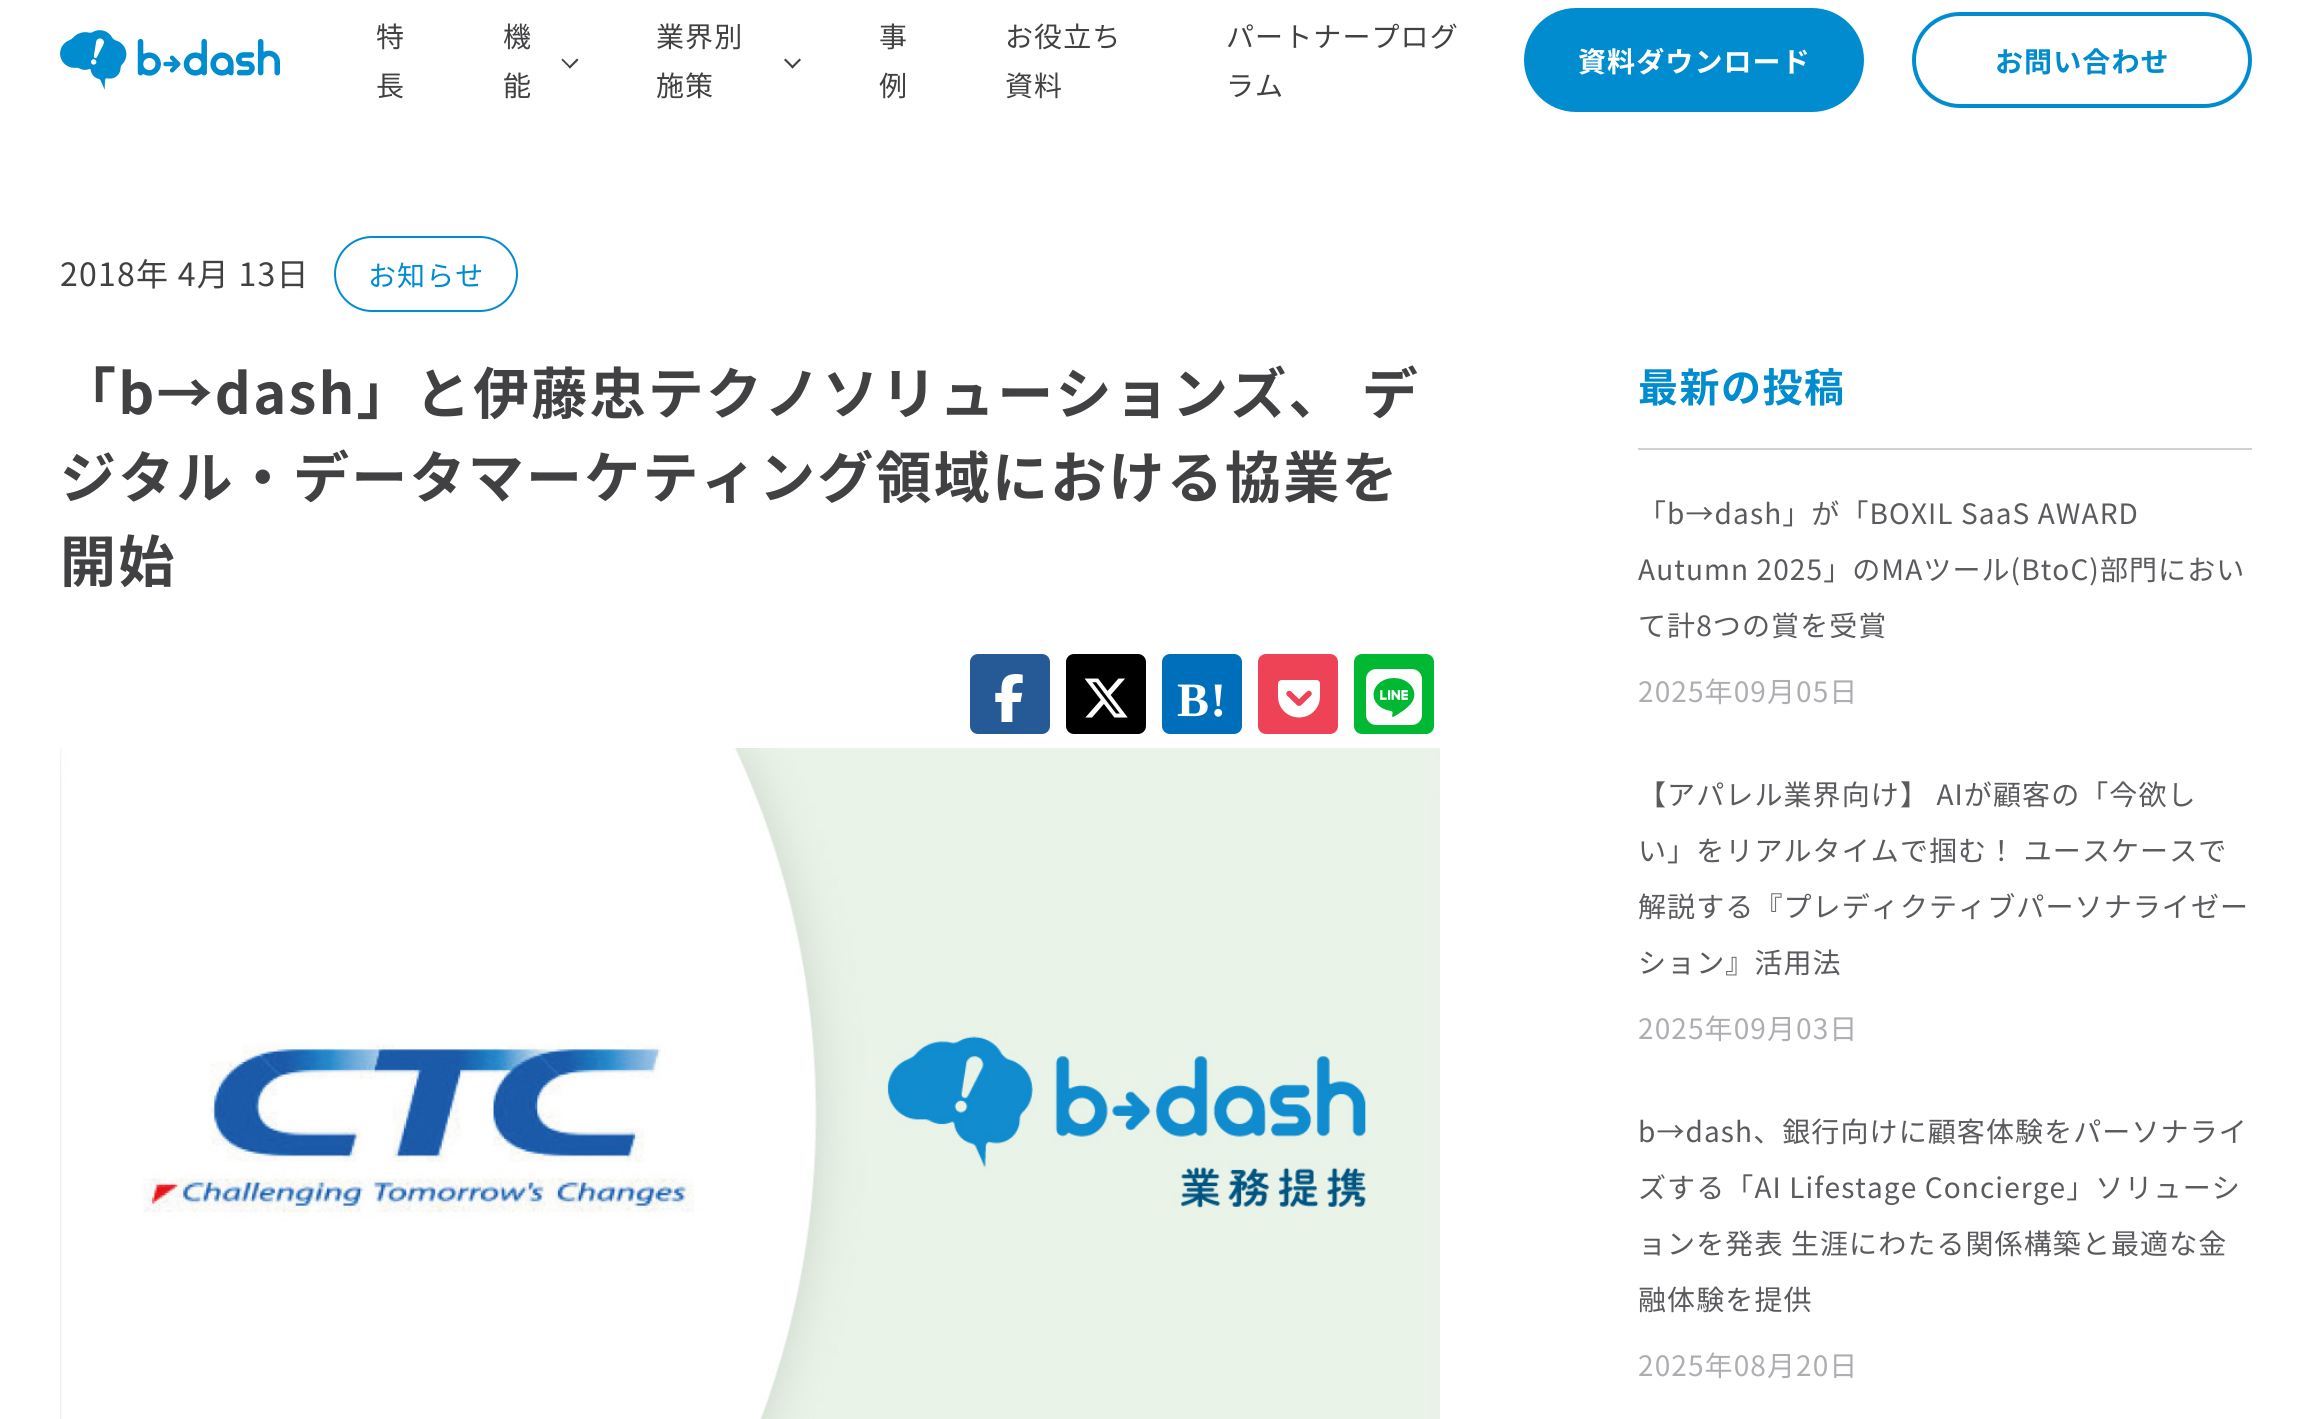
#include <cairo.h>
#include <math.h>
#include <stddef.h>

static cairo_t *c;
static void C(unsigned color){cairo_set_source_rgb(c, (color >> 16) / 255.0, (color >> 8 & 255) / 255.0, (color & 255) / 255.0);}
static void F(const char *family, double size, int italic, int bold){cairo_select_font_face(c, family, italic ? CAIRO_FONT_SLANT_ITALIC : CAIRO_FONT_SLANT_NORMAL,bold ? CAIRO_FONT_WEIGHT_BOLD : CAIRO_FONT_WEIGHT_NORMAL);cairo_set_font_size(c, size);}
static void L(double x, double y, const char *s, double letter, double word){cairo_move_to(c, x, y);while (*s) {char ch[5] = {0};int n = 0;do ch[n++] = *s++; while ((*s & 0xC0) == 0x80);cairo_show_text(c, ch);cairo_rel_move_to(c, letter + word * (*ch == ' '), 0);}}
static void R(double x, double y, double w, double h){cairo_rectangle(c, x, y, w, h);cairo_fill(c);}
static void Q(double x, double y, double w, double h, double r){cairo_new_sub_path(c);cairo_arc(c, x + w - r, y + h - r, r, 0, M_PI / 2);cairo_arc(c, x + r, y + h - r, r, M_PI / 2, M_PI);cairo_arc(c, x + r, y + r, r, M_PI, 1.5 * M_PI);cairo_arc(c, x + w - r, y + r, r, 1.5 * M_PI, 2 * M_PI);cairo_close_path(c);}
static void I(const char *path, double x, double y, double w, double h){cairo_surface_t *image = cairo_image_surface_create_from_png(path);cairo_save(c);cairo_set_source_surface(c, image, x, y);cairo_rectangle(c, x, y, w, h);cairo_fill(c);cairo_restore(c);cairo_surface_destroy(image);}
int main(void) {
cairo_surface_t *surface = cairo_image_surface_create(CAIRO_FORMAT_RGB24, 2312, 1419);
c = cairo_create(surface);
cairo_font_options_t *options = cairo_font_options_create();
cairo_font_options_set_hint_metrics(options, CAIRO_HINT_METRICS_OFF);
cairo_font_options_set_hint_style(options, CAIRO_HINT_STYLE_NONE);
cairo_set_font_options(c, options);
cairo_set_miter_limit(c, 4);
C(0xffffff);
cairo_paint(c);
I("1.png",60,30,220,60);
F("Noto Sans JP",28,0,0);
C(0x414143);
L(376,47,"特",1.1,0);
L(376,96,"長",1.1,0);
L(503,47,"機",1.1,0);
L(503,96,"能",1.1,0);
cairo_new_path(c);
cairo_move_to(c,578.5,60);
cairo_line_to(c,570,68.5);
cairo_line_to(c,568.5,67);
cairo_line_to(c,577,58.5);
cairo_close_path(c);
cairo_fill(c);
cairo_new_path(c);
cairo_move_to(c,571,67);
cairo_line_to(c,570,68.5);
cairo_line_to(c,561.5,60);
cairo_line_to(c,562.5,58.5);
cairo_close_path(c);
cairo_fill(c);
L(656,47,"業界別",1.1,0);
L(656,96,"施策",1.1,0);
cairo_new_path(c);
cairo_move_to(c,801,60);
cairo_line_to(c,792.5,68.5);
cairo_line_to(c,791,67);
cairo_line_to(c,799.5,58.5);
cairo_close_path(c);
cairo_fill(c);
cairo_new_path(c);
cairo_move_to(c,794,67);
cairo_line_to(c,792.5,68.5);
cairo_line_to(c,784,60);
cairo_line_to(c,785.5,58.5);
cairo_close_path(c);
cairo_fill(c);
L(879,47,"事",1.1,0);
L(879,96,"例",1.1,0);
L(1005,47,"お役立ち",1.1,0);
L(1005,96,"資料",1.1,0);
L(1226,47,"パートナープログ",1.1,0);
L(1226,96,"ラム",1.1,0);
C(0x008ccf);
Q(1524,8,340,104,52);
cairo_fill(c);
F("Noto Sans JP",28,0,1);
C(0xffffff);
L(1578,72,"資料ダウンロード",1.1,0);
Q(1914,14,336,92,46);
C(0x008ccf);
cairo_set_line_width(c,4);
cairo_stroke(c);
L(1995,72,"お問い合わせ",1.1,0);
F("Noto Sans JP",32,0,0);
C(0x414143);
L(60,286,"2018年 4月 13日",1.25,0);
Q(335,237,182,74,37);
C(0x008ccf);
cairo_set_line_width(c,2);
cairo_stroke(c);
F("Noto Sans JP",28,0,0);
L(368,286,"お知らせ",1.1,0);
F("Noto Sans JP",56,0,1);
C(0x414143);
L(60,414,"「b→dash」と伊藤忠テクノソリューションズ、 デ",2.25,0);
L(60,498,"ジタル・データマーケティング領域における協業を",2.25,0);
L(60,582,"開始",2.25,0);
C(0x265a96);
Q(970,654,80,80,8);
cairo_fill(c);
I("2.png",995,674,28,48);
C(0x000000);
Q(1066,654,80,80,8);
cairo_fill(c);
I("3.png",1084,678,44,40);
C(0x006fbb);
Q(1162,654,80,80,8);
cairo_fill(c);
F("Liberation Serif",48,0,1);
C(0xffffff);
L(1177,716,"B!",1.25,0);
C(0xee4256);
Q(1258,654,80,80,8);
cairo_fill(c);
I("4.png",1278,680,42,38);
C(0x01b833);
Q(1354,654,80,80,8);
cairo_fill(c);
I("5.png",1366,669,56,56);
I("6.png",60,748,1380,671);
C(0xd0d0d1);
R(1638,448,614,2);
F("Noto Sans JP",40,0,1);
C(0x008ccf);
L(1638,402,"最新の投稿",1.5,0);
F("Noto Sans JP",28,0,0);
C(0x5b5b5f);
L(1638,524,"「b→dash」が「BOXIL SaaS AWARD",1.1,0);
L(1638,580,"Autumn 2025」のMAツール(BtoC)部門におい",1.1,0);
L(1638,636,"て計8つの賞を受賞",1.1,0);
C(0xaeaeb2);
L(1638,702,"2025年09月05日",1.1,0);
C(0x5b5b5f);
L(1638,805,"【アパレル業界向け】 AIが顧客の「今欲し",1.1,0);
L(1638,861,"い」をリアルタイムで掴む！ ユースケースで",1.1,0);
L(1638,917,"解説する『プレディクティブパーソナライゼー",1.1,0);
L(1638,973,"ション』活用法",1.1,0);
C(0xaeaeb2);
L(1638,1039,"2025年09月03日",1.1,0);
C(0x5b5b5f);
L(1638,1142,"b→dash、銀行向けに顧客体験をパーソナライ",1.1,0);
L(1638,1198,"ズする「AI Lifestage Concierge」ソリューシ",1.1,0);
L(1638,1254,"ョンを発表 生涯にわたる関係構築と最適な金",1.1,0);
L(1638,1310,"融体験を提供",1.1,0);
C(0xaeaeb2);
L(1638,1376,"2025年08月20日",1.1,0);
cairo_surface_write_to_png(surface, "o.png");
cairo_font_options_destroy(options);
cairo_destroy(c);
cairo_surface_destroy(surface);
return 0;
}
